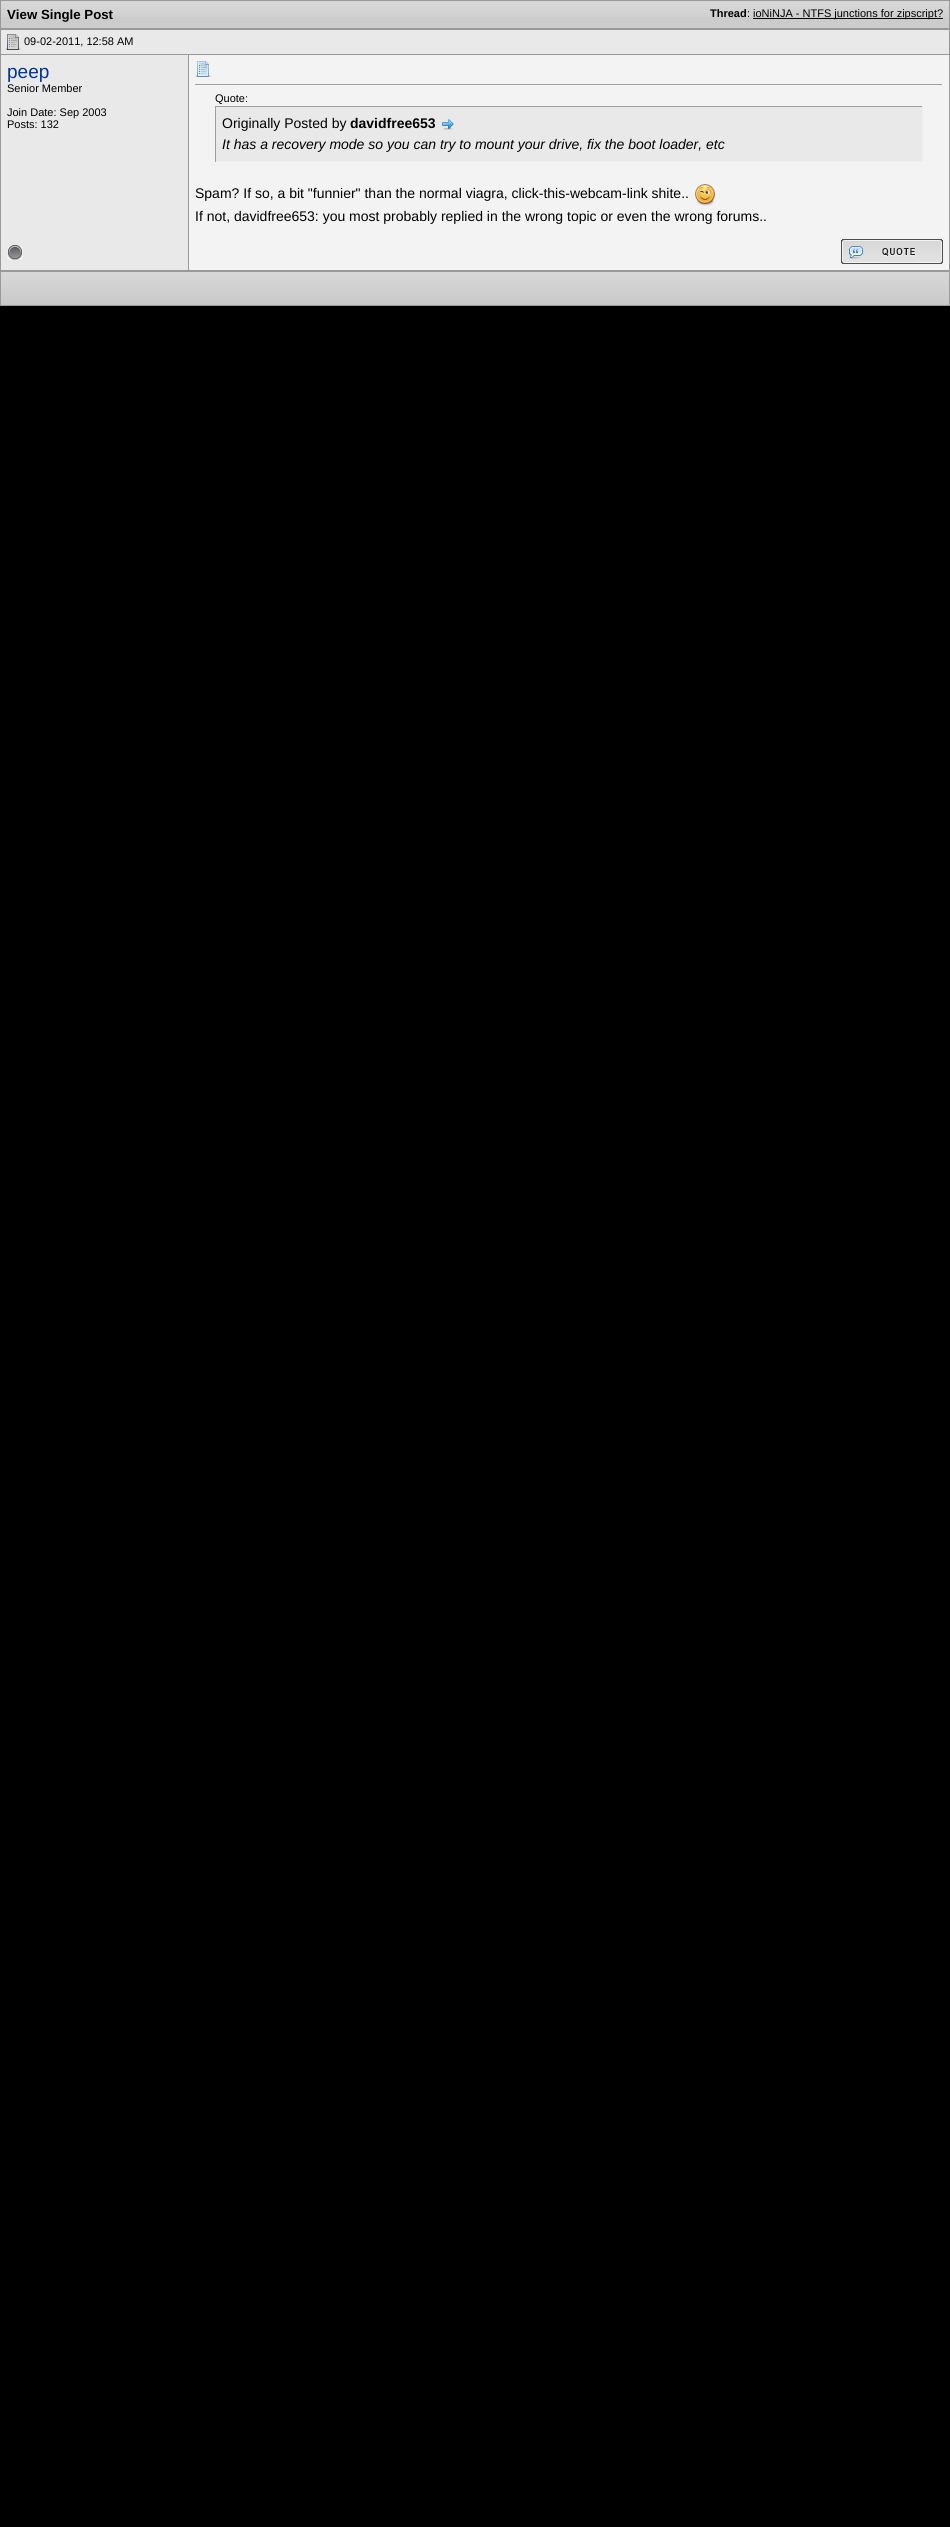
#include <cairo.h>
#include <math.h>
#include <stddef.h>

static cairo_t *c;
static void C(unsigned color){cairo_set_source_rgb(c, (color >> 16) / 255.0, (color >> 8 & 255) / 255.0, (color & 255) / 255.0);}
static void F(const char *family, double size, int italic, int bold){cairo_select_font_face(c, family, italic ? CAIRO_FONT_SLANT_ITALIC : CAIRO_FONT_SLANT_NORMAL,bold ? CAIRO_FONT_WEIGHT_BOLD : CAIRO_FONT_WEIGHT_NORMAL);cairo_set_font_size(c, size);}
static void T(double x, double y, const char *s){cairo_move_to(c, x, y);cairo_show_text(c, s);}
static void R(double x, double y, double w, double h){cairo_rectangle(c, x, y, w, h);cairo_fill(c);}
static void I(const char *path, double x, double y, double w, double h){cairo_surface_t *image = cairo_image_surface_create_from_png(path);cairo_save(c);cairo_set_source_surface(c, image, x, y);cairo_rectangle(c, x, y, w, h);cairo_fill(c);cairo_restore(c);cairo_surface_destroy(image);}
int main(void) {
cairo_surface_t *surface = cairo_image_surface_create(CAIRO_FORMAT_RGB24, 950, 2527);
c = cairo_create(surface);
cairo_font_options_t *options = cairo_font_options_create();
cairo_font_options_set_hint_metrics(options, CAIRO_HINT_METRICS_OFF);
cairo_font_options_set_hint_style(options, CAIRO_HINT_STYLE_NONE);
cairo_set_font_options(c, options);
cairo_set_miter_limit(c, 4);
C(0x000000);
cairo_paint(c);
C(0x999999);
R(0,0,950,29);
C(0xcccccc);
R(1,17,948,11);
I("1.png",1,1,948,16);
F("Liberation Sans",13.25,0,1);
C(0x000000);
T(7,19,"View Single Post");
F("Liberation Sans",11,0,1);
T(710,17,"Thread");
F("Liberation Sans",11,0,0);
T(747,17,":");
R(753,18,190,1);
T(753,17,"ioNiNJA - NTFS junctions for zipscript?");
C(0xe9e9e9);
R(1,30,948,24);
C(0x999999);
R(0,29,950,1);
R(0,54,189,1);
R(0,29,1,204);
I("2.png",5,34,16,16);
C(0x000000);
T(24,45,"09-02-2011, 12:58 AM");
C(0x999999);
R(949,29,1,242);
R(189,54,761,1);
C(0xe9e9e9);
R(1,55,187,215);
C(0x999999);
R(188,55,1,216);
F("Liberation Sans",19,0,0);
C(0x003399);
T(7,78,"peep");
F("Liberation Sans",11,0,0);
C(0x000000);
T(7,92,"Senior Member");
T(7,116,"Join Date: Sep 2003");
T(7,128,"Posts: 132");
C(0xf3f3f3);
R(189,55,760,215);
I("3.png",195,61,16,16);
C(0x9f9f9f);
R(195,84,748,1);
C(0xeeeeee);
R(942,84,1,1);
C(0x000000);
T(215,102,"Quote:");
C(0xe9e9e9);
R(216,107,706,54);
C(0x9f9f9f);
R(215,106,708,1);
C(0xeeeeee);
R(922,106,1,56);
R(215,161,708,1);
C(0x9f9f9f);
R(215,106,1,56);
F("Liberation Sans",14,0,0);
C(0x000000);
T(222,128,"Originally Posted by");
F("Liberation Sans",14,0,1);
T(350,128,"davidfree653");
I("4.png",442,119,12,11);
F("Liberation Sans",14,1,0);
T(222,149,"It has a recovery mode so you can try to mount your drive, fix the boot loader, etc");
F("Liberation Sans",14,0,0);
T(195,198,"Spam? If so, a bit \"funnier\" than the normal viagra, click-this-webcam-link shite..");
I("5.png",695,184,20,22);
T(195,221,"If not, davidfree653: you most probably replied in the wrong topic or even the wrong forums..");
C(0x999999);
R(0,270,950,36);
R(0,233,1,38);
I("6.png",7,245,16,15);
I("7.png",841,239,102,25);
I("8.png",1,272,948,33);
cairo_surface_write_to_png(surface, "o.png");
cairo_font_options_destroy(options);
cairo_destroy(c);
cairo_surface_destroy(surface);
return 0;
}
